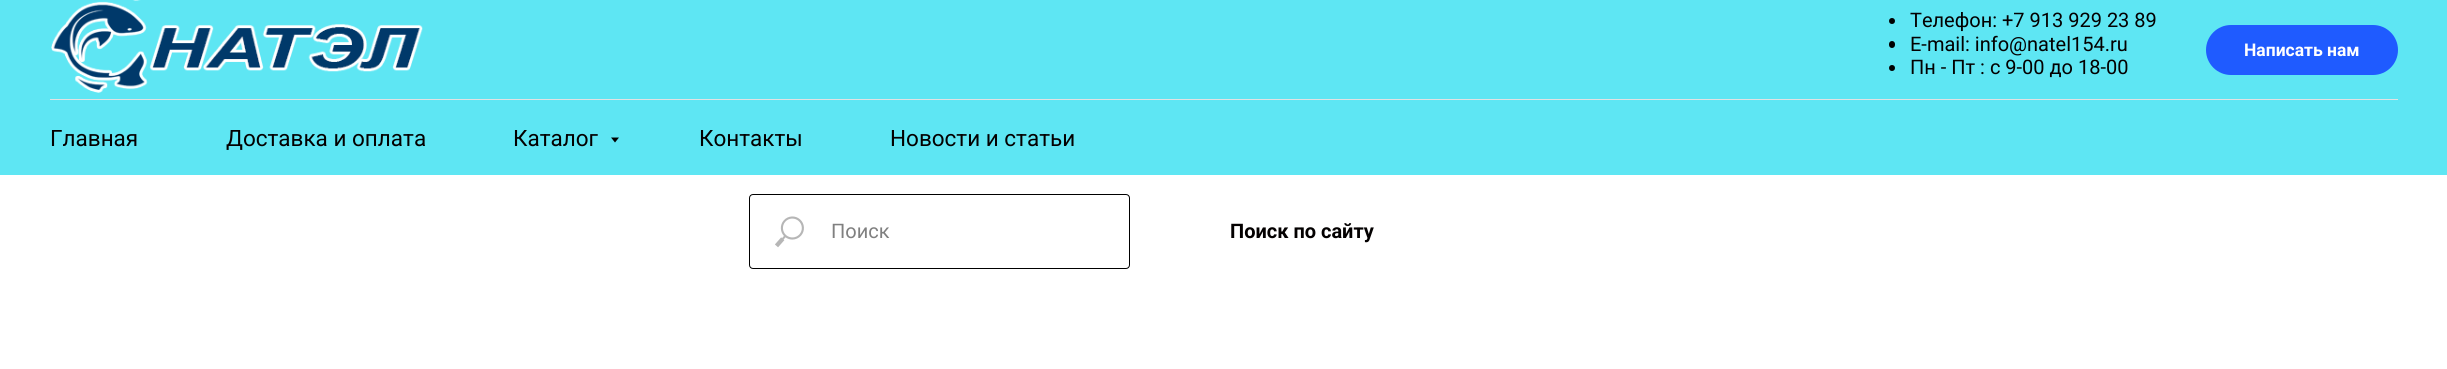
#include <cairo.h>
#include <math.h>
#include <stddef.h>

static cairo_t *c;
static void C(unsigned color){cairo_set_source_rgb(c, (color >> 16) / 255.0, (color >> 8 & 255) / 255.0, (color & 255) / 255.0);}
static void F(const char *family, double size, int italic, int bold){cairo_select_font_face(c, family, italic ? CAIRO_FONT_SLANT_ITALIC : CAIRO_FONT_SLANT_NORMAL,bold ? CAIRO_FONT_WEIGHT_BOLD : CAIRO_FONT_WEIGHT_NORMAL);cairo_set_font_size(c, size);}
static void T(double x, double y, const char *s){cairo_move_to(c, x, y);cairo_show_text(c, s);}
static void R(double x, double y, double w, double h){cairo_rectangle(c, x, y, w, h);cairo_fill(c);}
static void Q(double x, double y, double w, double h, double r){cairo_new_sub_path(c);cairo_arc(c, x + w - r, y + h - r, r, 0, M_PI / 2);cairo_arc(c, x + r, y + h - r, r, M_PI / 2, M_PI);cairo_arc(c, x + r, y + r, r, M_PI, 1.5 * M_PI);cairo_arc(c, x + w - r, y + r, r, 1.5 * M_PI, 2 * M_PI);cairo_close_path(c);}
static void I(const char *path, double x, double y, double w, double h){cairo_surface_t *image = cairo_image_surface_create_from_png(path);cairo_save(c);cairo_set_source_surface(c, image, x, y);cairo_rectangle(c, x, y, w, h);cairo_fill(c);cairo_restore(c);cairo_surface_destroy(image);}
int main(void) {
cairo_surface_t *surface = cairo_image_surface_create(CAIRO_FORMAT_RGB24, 2447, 369);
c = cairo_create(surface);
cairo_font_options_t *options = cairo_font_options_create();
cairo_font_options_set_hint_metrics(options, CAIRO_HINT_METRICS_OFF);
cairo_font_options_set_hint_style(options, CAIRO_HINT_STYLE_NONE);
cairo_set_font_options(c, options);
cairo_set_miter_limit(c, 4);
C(0xffffff);
cairo_paint(c);
C(0x5ee6f3);
R(0,0,2447,175);
I("1.png",51,0,372,93);
C(0x000000);
cairo_arc(c,1892,21,3,0,2 * M_PI);
cairo_fill(c);
F("Roboto",20,0,0);
C(0x030000);
T(1910,27,"Телефон: +7 913 929 23 89");
C(0x000000);
Q(1889,41,6,7,3);
cairo_fill(c);
C(0x030000);
T(1910,51,"E-mail: info@natel154.ru");
C(0x000000);
cairo_new_path(c);
cairo_arc(c,1892,68,3,0,2 * M_PI);
cairo_fill(c);
C(0x030000);
T(1910,74,"Пн - Пт : с 9-00 до 18-00");
C(0x1f5bff);
Q(2206,25,192,50,25);
cairo_fill(c);
F("Roboto",17.5,0,1);
C(0xffffff);
T(2244,56,"Написать нам");
C(0xe2e2e2);
R(50,99,2348,1);
F("Roboto",22.5,0,0);
C(0x030000);
T(50,146,"Главная");
T(226,146,"Доставка и оплата");
T(513,146,"Каталог");
C(0x000000);
cairo_new_path(c);
cairo_move_to(c,611,137.5);
cairo_line_to(c,619,137.5);
cairo_line_to(c,615,142.5);
cairo_close_path(c);
cairo_fill(c);
C(0x030000);
T(699,146,"Контакты");
T(890,146,"Новости и статьи");
Q(749.5,194.5,380,74,3.5);
C(0x000000);
cairo_set_line_width(c,1);
cairo_stroke(c);
I("2.png",775,216,29,32);
F("Roboto",20,0,0);
C(0x808080);
T(831,238,"Поиск");
F("Roboto",20,0,1);
C(0x030000);
T(1230,238,"Поиск по сайту");
cairo_surface_write_to_png(surface, "o.png");
cairo_font_options_destroy(options);
cairo_destroy(c);
cairo_surface_destroy(surface);
return 0;
}
